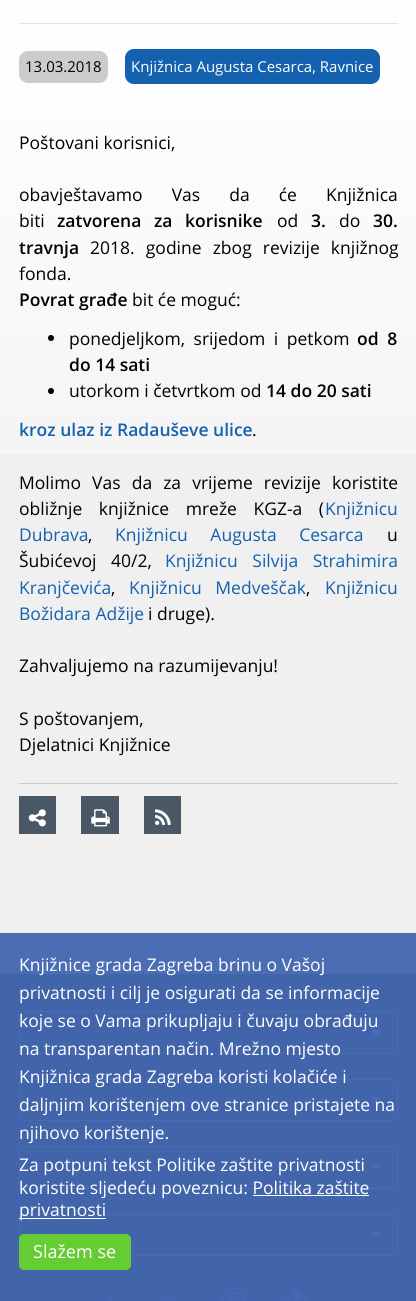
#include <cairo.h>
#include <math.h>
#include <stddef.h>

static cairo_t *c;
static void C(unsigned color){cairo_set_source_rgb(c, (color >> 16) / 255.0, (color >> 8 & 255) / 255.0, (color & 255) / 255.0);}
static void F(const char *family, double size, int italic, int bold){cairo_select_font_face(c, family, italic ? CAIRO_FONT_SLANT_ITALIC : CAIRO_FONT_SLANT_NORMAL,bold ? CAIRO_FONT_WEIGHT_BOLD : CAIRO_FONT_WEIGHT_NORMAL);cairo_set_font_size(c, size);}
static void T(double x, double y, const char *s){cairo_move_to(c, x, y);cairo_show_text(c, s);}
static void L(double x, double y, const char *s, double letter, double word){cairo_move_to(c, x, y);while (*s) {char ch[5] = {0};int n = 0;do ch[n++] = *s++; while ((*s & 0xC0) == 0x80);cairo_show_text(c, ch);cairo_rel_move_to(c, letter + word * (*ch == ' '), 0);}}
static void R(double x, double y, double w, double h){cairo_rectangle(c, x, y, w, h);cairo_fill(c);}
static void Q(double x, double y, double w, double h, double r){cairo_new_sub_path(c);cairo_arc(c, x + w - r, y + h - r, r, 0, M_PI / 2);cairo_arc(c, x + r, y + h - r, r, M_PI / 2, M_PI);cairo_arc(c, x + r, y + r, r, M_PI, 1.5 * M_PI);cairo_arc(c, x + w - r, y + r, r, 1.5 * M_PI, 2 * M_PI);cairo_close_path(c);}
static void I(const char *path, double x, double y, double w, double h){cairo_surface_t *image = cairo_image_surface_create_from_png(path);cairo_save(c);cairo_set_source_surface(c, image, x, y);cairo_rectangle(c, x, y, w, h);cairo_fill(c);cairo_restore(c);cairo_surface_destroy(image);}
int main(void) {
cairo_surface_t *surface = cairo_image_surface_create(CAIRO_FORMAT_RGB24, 416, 1301);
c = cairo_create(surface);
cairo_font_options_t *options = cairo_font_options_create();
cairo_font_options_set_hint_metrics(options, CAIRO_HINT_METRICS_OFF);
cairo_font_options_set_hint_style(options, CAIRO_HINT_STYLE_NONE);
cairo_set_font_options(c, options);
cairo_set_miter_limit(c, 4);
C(0xf0f0f0);
cairo_paint(c);
C(0x4b6db3);
R(0,933,416,41);
I("1.png",0,0,416,454);
C(0xe4e4e4);
R(19,23,379,1);
C(0xcccccc);
Q(19,51,89,32,9);
cairo_fill(c);
F("Open Sans",15,0,0);
C(0x000000);
T(25,72,"13.03.2018");
C(0x1361af);
Q(125,49,255,35,9);
cairo_fill(c);
C(0xffffff);
T(131,72,"Knjižnica Augusta Cesarca, Ravnice");
F("Open Sans",17.5,0,0);
C(0x000000);
T(19,149,"Poštovani korisnici,");
L(19,201,"obavještavamo Vas da će Knjižnica",0,24.5);
T(19,227,"biti");
F("Open Sans SemiBold",17.5,0,0);
L(57,227,"zatvorena za korisnike",0,8);
F("Open Sans",17.5,0,0);
T(277,227,"od");
F("Open Sans SemiBold",17.5,0,0);
T(311,227,"3.");
F("Open Sans",17.5,0,0);
T(339,227,"do");
F("Open Sans SemiBold",17.5,0,0);
T(373,227,"30.");
T(19,254,"travnja");
F("Open Sans",17.5,0,0);
L(90,254,"2018. godine zbog revizije knjižnog",0,6.5);
T(19,280,"fonda.");
F("Open Sans SemiBold",17.5,0,0);
T(19,306,"Povrat građe");
F("Open Sans",17.5,0,0);
T(132,306,"bit će moguć:");
cairo_new_path(c);
cairo_arc(c,51,338,3,0,2 * M_PI);
cairo_fill(c);
L(69,345,"ponedjeljkom, srijedom i petkom",0,4);
F("Open Sans SemiBold",17.5,0,0);
L(357,345,"od 8",0,4);
T(69,371,"do 14 sati");
cairo_new_path(c);
cairo_arc(c,51,391,3,0,2 * M_PI);
cairo_fill(c);
F("Open Sans",17.5,0,0);
T(69,397,"utorkom i četvrtkom od");
F("Open Sans SemiBold",17.5,0,0);
T(266,397,"14 do 20 sati");
C(0x1361af);
T(19,436,"kroz ulaz iz Radauševe ulice");
F("Open Sans",17.5,0,0);
C(0x000000);
T(252,436,".");
L(19,489,"Molimo Vas da za vrijeme revizije koristite",0,6.5);
L(19,515,"obližnje knjižnice mreže KGZ-a (",0,12);
C(0x1361af);
T(325,515,"Knjižnicu");
T(19,541,"Dubrava");
C(0x000000);
T(88,541,",");
C(0x1361af);
L(115,541,"Knjižnicu Augusta Cesarca",0,18);
C(0x000000);
T(387,541,"u");
L(19,567,"Šubićevoj 40/2,",0,10);
C(0x1361af);
L(165,567,"Knjižnicu Silvija Strahimira",0,10);
T(19,594,"Kranjčevića");
C(0x000000);
T(111,594,",");
C(0x1361af);
L(129,594,"Knjižnicu Medveščak",0,9);
C(0x000000);
T(306,594,",");
C(0x1361af);
T(325,594,"Knjižnicu");
T(19,620,"Božidara Adžije");
C(0x000000);
T(148,620,"i druge).");
T(19,672,"Zahvaljujemo na razumijevanju!");
T(19,725,"S poštovanjem,");
T(19,751,"Djelatnici Knjižnice");
C(0xcccccc);
R(19,783,379,1);
C(0x4a5865);
R(19,796,37,38);
I("2.png",28,809,18,18);
R(81,796,38,38);
I("3.png",91,809,19,18);
R(144,796,37,38);
I("4.png",155,809,16,16);
C(0x4164ab);
R(0,974,416,327);
C(0xffffff);
T(19,971,"Knjižnice grada Zagreba brinu o Vašoj");
T(19,999,"privatnosti i cilj je osigurati da se informacije");
Q(19.5,1011.5,378,42,4.5);
C(0x496bb1);
cairo_set_line_width(c,1);
cairo_stroke(c);
C(0x4b6eb4);
cairo_new_path(c);
cairo_move_to(c,371,1030);
cairo_line_to(c,381,1030);
cairo_line_to(c,376,1035);
cairo_close_path(c);
cairo_fill(c);
C(0xffffff);
T(19,1027,"koje se o Vama prikupljaju i čuvaju obrađuju");
T(19,1055,"na transparentan način. Mrežno mjesto");
Q(19.5,1079.5,378,41,4.5);
C(0x496bb1);
cairo_stroke(c);
C(0xffffff);
T(19,1083,"Knjižnica grada Zagreba koristi kolačiće i");
C(0x4b6eb4);
cairo_new_path(c);
cairo_move_to(c,371,1097.5);
cairo_line_to(c,381,1097.5);
cairo_line_to(c,376,1102.5);
cairo_close_path(c);
cairo_fill(c);
C(0xffffff);
T(19,1111,"daljnjim korištenjem ove stranice pristajete na");
T(19,1139,"njihovo korištenje.");
Q(19.5,1146.5,378,42,4.5);
C(0x496bb1);
cairo_stroke(c);
C(0xffffff);
T(19,1171,"Za potpuni tekst Politike zaštite privatnosti");
T(19,1194,"koristite sljedeću poveznicu: Politika zaštite");
Q(19.5,1214.5,378,41,4.5);
C(0x496bb1);
cairo_stroke(c);
C(0xffffff);
R(19,1218,87,1);
T(19,1216,"privatnosti");
R(253,1195,116,1);
C(0x66cc33);
Q(19,1234,112,36,5);
cairo_fill(c);
F("Open Sans",18,0,0);
C(0xffffff);
T(33,1258,"Slažem se");
C(0x4b6eb4);
cairo_new_path(c);
cairo_move_to(c,371,1165);
cairo_line_to(c,381,1165);
cairo_line_to(c,376,1170);
cairo_close_path(c);
cairo_fill(c);
cairo_new_path(c);
cairo_move_to(c,371,1232.5);
cairo_line_to(c,381,1232.5);
cairo_line_to(c,376,1237.5);
cairo_close_path(c);
cairo_fill(c);
I("5.png",105,1294,10,7);
I("6.png",165,1294,12,7);
I("7.png",221,1292,23,9);
I("8.png",285,1289,21,12);
cairo_surface_write_to_png(surface, "o.png");
cairo_font_options_destroy(options);
cairo_destroy(c);
cairo_surface_destroy(surface);
return 0;
}
